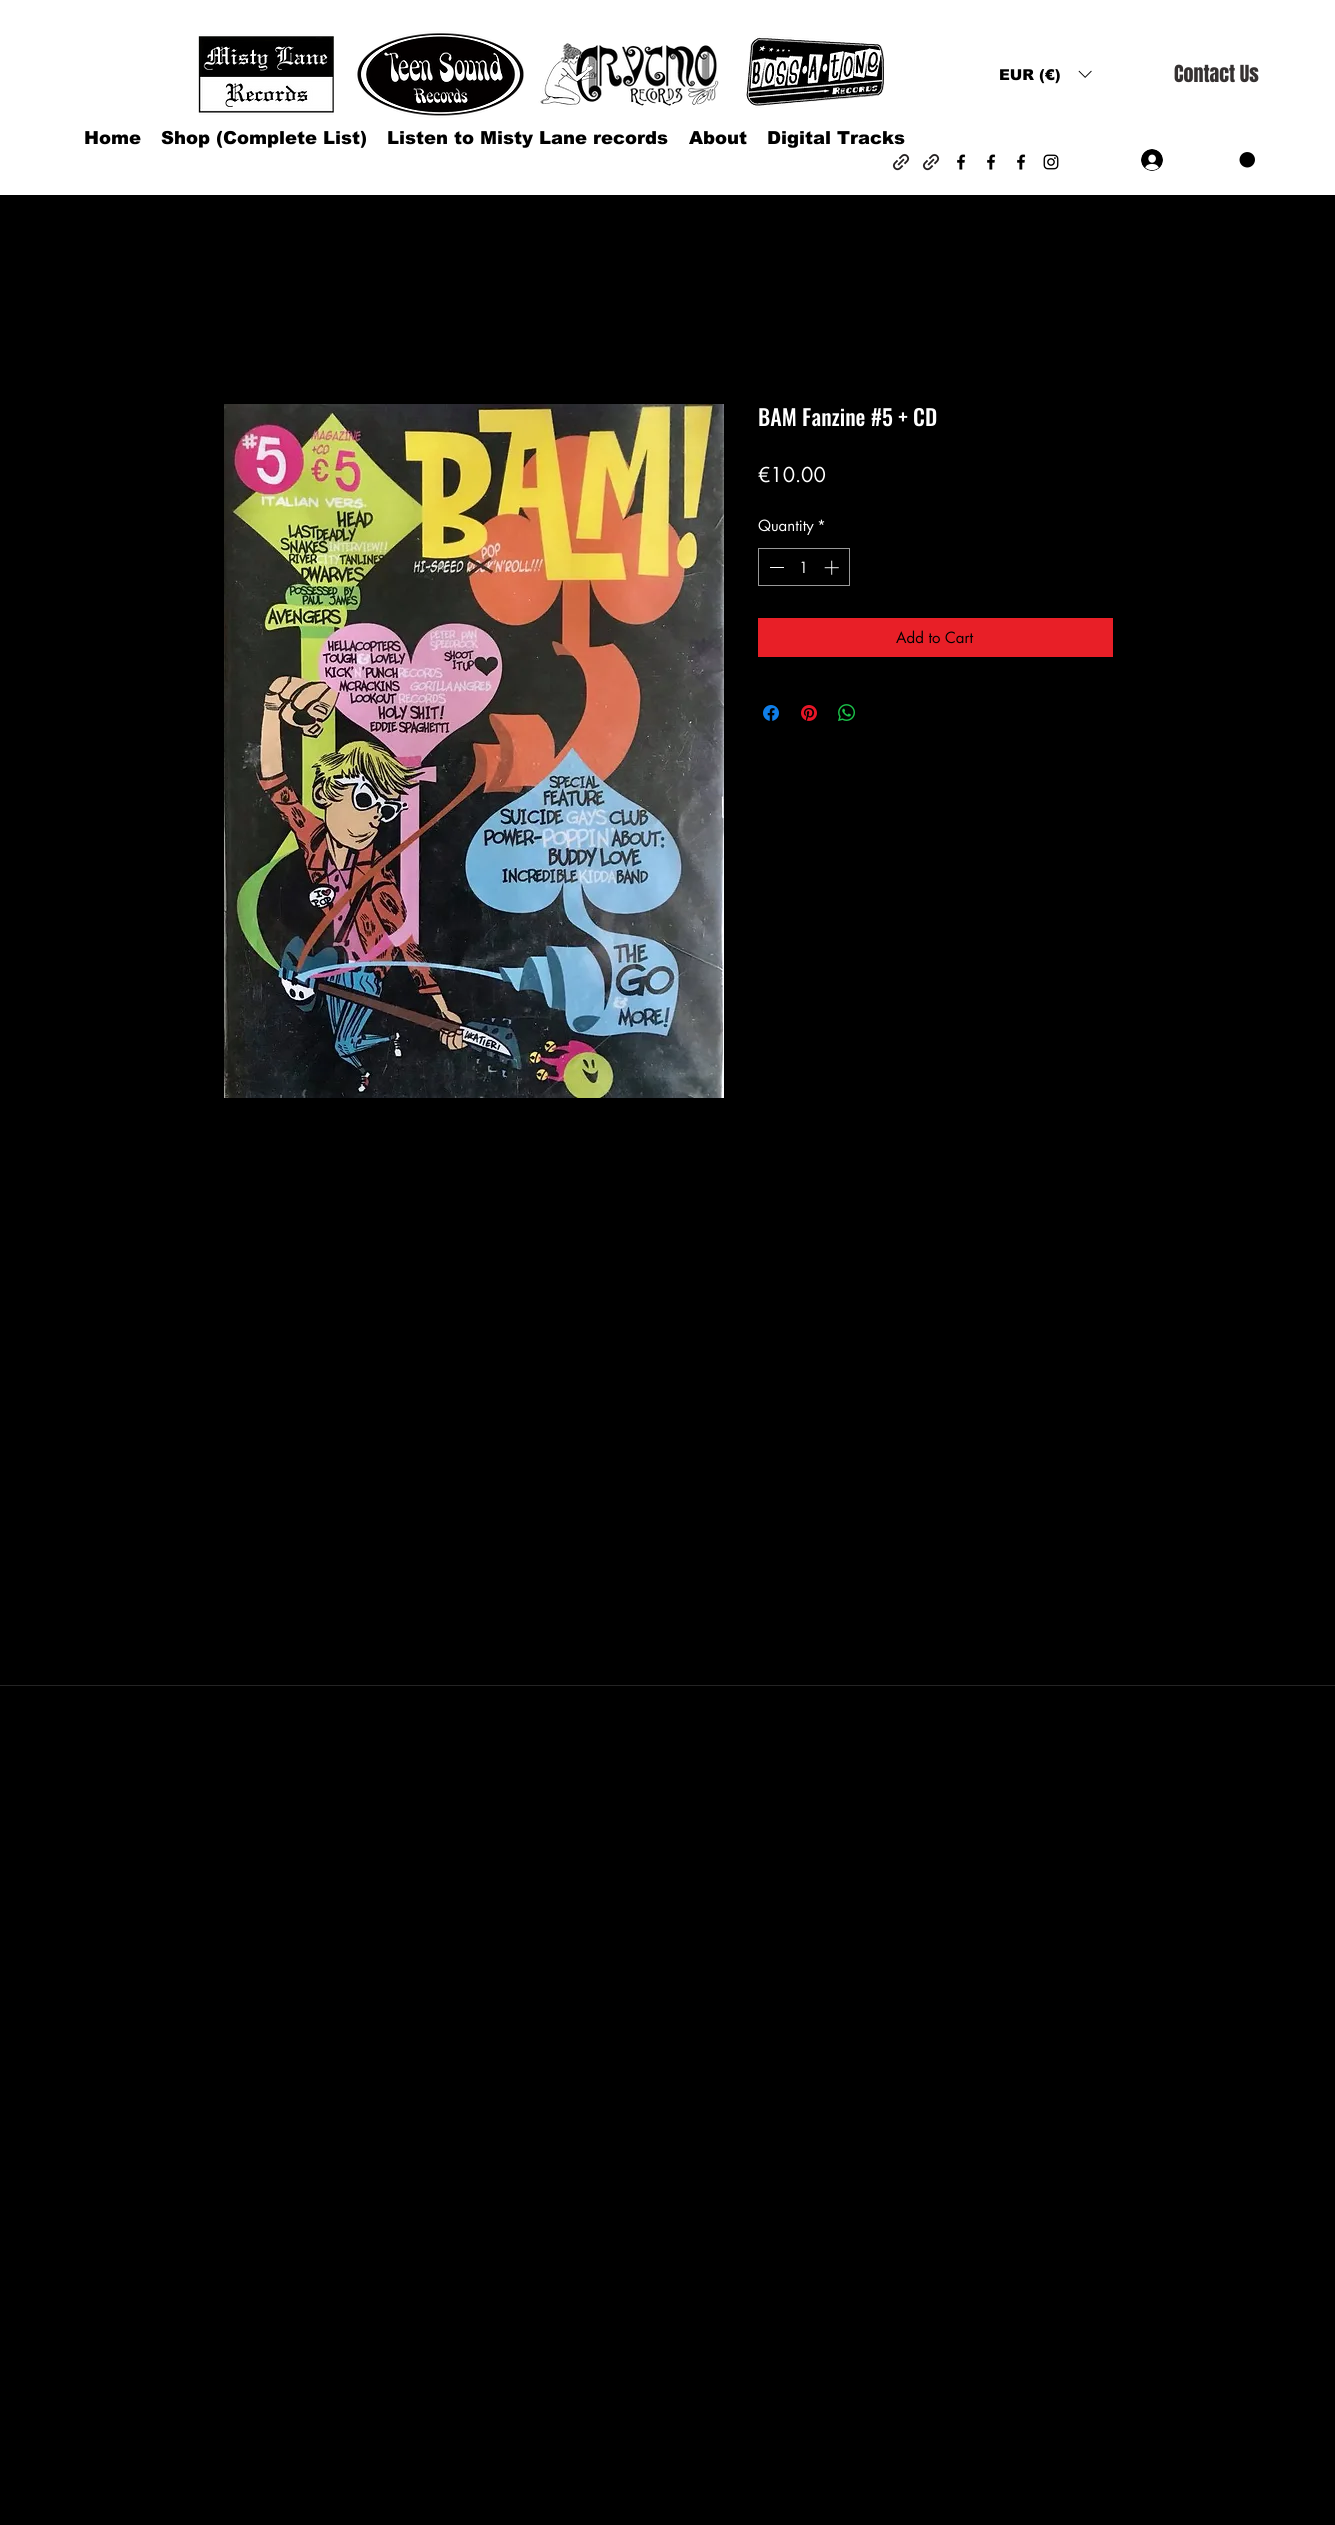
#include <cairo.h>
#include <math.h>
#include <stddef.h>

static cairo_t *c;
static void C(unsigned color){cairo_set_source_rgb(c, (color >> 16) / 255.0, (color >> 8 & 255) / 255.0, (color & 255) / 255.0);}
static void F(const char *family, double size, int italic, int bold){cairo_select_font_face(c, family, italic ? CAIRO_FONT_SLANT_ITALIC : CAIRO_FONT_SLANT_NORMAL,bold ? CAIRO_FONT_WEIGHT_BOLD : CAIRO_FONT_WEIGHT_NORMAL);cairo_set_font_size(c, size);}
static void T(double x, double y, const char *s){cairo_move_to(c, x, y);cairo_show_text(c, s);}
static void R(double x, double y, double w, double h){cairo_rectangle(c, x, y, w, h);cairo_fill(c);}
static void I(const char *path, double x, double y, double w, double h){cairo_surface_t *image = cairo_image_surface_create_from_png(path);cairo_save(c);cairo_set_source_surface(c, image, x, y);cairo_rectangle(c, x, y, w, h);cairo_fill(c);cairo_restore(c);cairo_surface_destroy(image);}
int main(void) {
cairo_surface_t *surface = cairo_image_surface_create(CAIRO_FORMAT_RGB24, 1335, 2525);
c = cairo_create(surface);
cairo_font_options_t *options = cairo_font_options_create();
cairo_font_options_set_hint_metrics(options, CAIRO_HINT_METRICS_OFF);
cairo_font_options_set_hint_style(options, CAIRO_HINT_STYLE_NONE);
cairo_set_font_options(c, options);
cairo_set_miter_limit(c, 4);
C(0x000000);
cairo_paint(c);
C(0xffffff);
R(0,0,1335,195);
I("1.png",198,31,686,87);
F("arial Black",15,0,0);
C(0x000000);
T(999,80,"EUR (€)");
I("2.png",1078,70,14,8);
F("Anton",20,0,0);
C(0x353131);
T(1174,82,"Contact Us");
F("arial Black",18,0,0);
C(0x000000);
T(84,144,"Home");
T(161,144,"Shop (Complete List)");
T(387,144,"Listen to Misty Lane records");
T(689,144,"About");
T(767,144,"Digital Tracks");
I("3.png",892,153,18,18);
I("3.png",922,153,18,18);
I("4.png",957,154,9,16);
I("4.png",987,154,9,16);
I("4.png",1017,154,9,16);
I("5.png",1043,154,16,16);
I("6.png",1141,149,22,22);
I("7.png",1239,152,16,16);
I("8.png",224,404,500,694);
F("Oswald Medium",22,0,0);
C(0xffffff);
T(758,426,"BAM Fanzine #5 + CD");
F("futura",20,0,0);
T(758,482,"€10.00");
F("futura",15,0,0);
T(758,531,"Quantity");
T(817,531,"*");
cairo_rectangle(c,758.5,548.5,91,37);
C(0x999999);
cairo_set_line_width(c,1);
cairo_stroke(c);
C(0xffffff);
R(770,567,14,1);
T(799,573,"1");
I("9.png",824,560,15,15);
C(0xe81f27);
R(758,618,355,39);
C(0x000000);
T(896,643,"Add to Cart");
I("10.png",763,705,16,16);
I("11.png",801,705,16,16);
I("12.png",838,704,17,17);
C(0x242424);
R(0,1685,1335,1);
cairo_surface_write_to_png(surface, "o.png");
cairo_font_options_destroy(options);
cairo_destroy(c);
cairo_surface_destroy(surface);
return 0;
}
